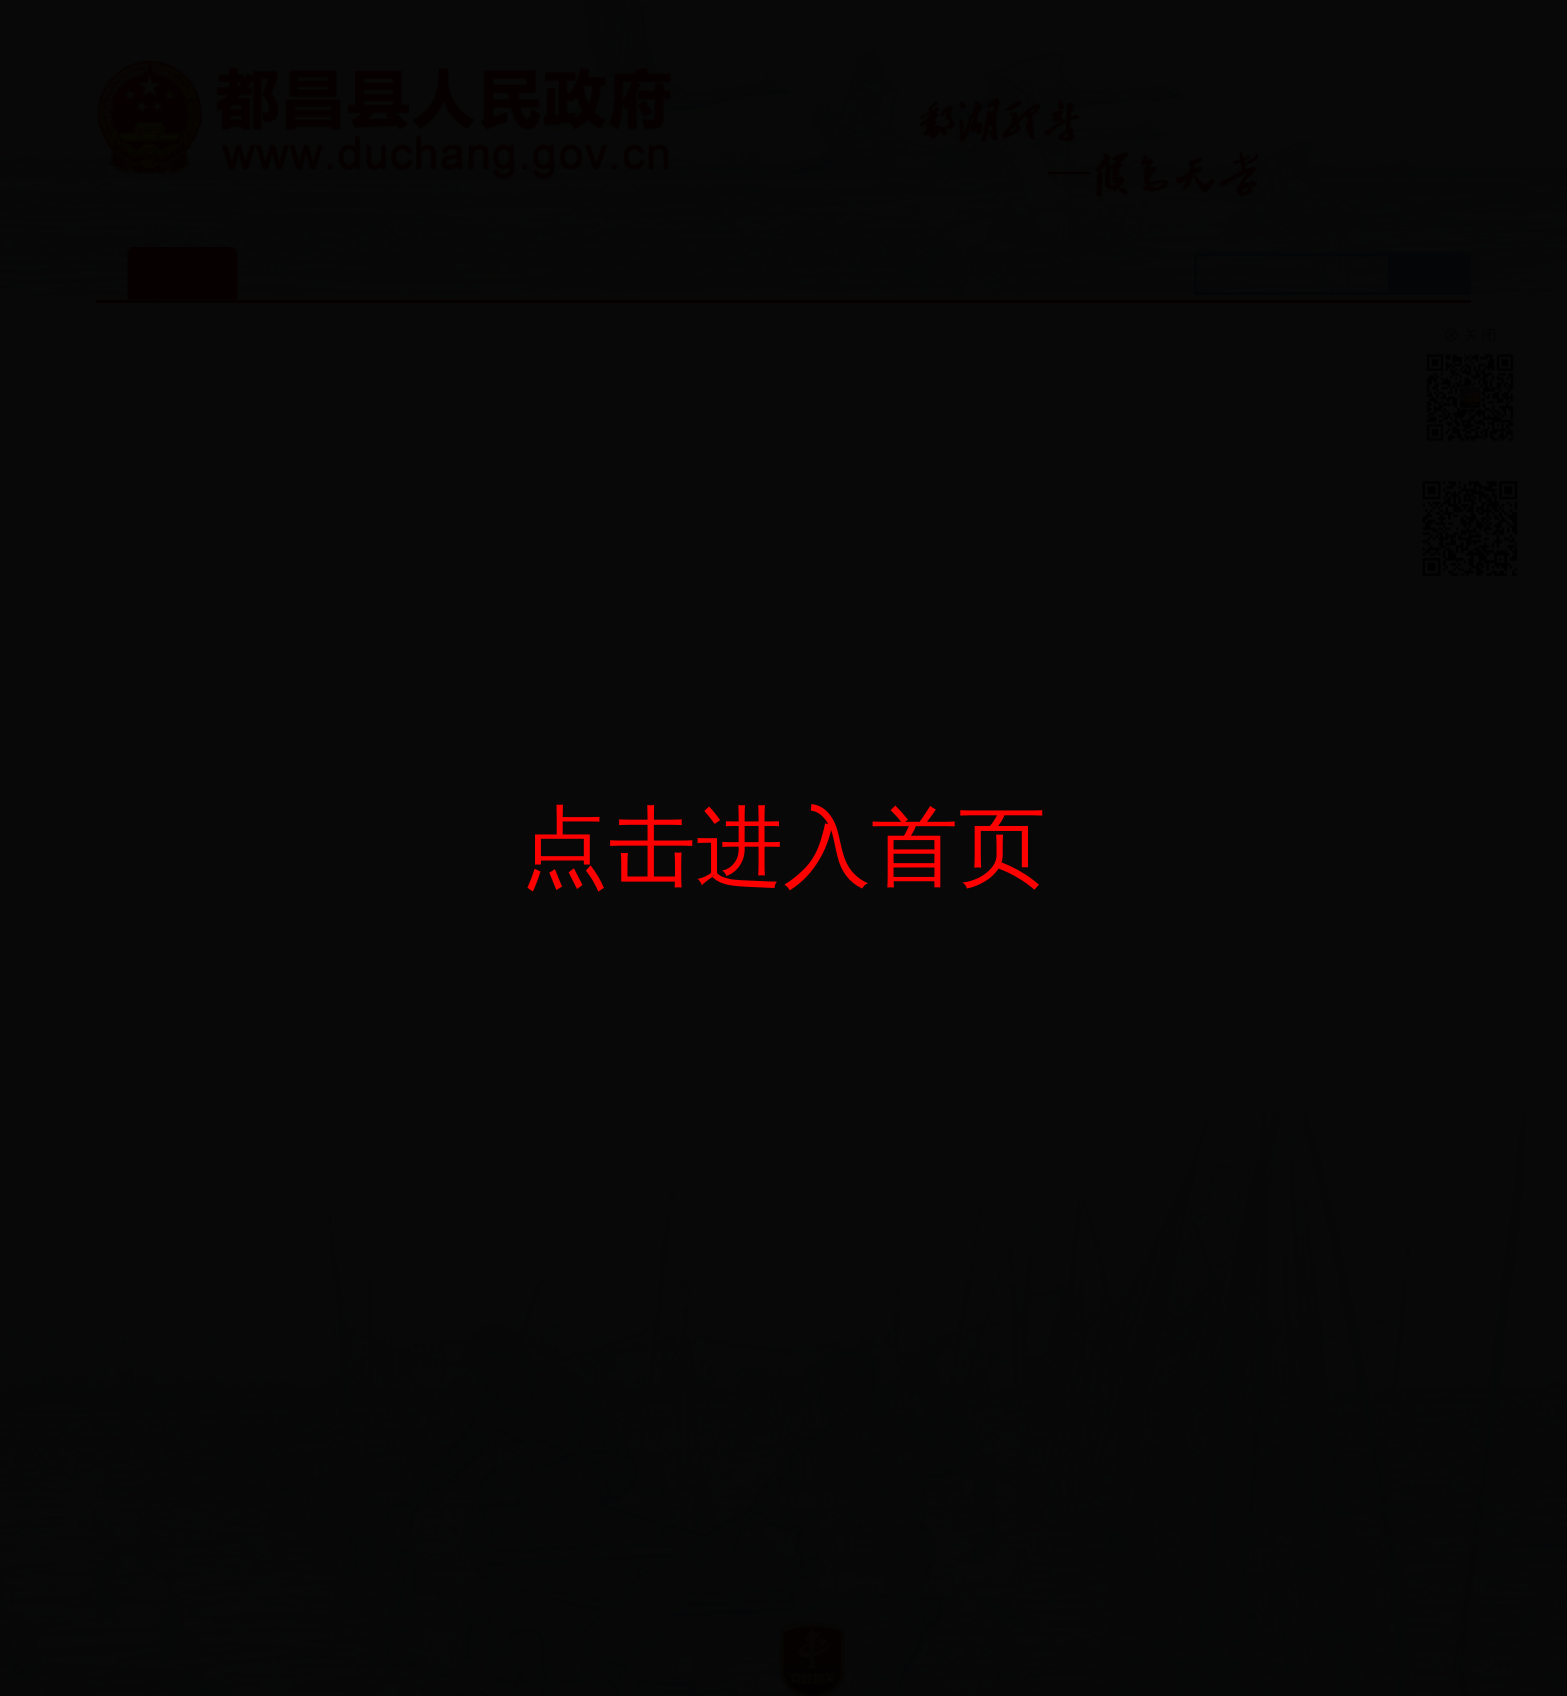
#include <cairo.h>
#include <math.h>
#include <stddef.h>

static cairo_t *c;
static void C(unsigned color){cairo_set_source_rgb(c, (color >> 16) / 255.0, (color >> 8 & 255) / 255.0, (color & 255) / 255.0);}
static void F(const char *family, double size, int italic, int bold){cairo_select_font_face(c, family, italic ? CAIRO_FONT_SLANT_ITALIC : CAIRO_FONT_SLANT_NORMAL,bold ? CAIRO_FONT_WEIGHT_BOLD : CAIRO_FONT_WEIGHT_NORMAL);cairo_set_font_size(c, size);}
static void T(double x, double y, const char *s){cairo_move_to(c, x, y);cairo_show_text(c, s);}
static void R(double x, double y, double w, double h){cairo_rectangle(c, x, y, w, h);cairo_fill(c);}
static void I(const char *path, double x, double y, double w, double h){cairo_surface_t *image = cairo_image_surface_create_from_png(path);cairo_save(c);cairo_set_source_surface(c, image, x, y);cairo_rectangle(c, x, y, w, h);cairo_fill(c);cairo_restore(c);cairo_surface_destroy(image);}
int main(void) {
cairo_surface_t *surface = cairo_image_surface_create(CAIRO_FORMAT_RGB24, 1567, 1696);
c = cairo_create(surface);
cairo_font_options_t *options = cairo_font_options_create();
cairo_font_options_set_hint_metrics(options, CAIRO_HINT_METRICS_OFF);
cairo_font_options_set_hint_style(options, CAIRO_HINT_STYLE_NONE);
cairo_set_font_options(c, options);
cairo_set_miter_limit(c, 4);
C(0x080808);
cairo_paint(c);
I("1.png",0,1113,1567,583);
I("2.png",0,0,1567,301);
I("3.png",96,60,1163,138);
C(0x060000);
R(96,300,1375,3);
I("4.png",127,247,26,53);
I("5.png",152,247,86,53);
cairo_rectangle(c,1195.5,254.5,194,39);
C(0x030506);
cairo_set_line_width(c,3);
cairo_stroke(c);
R(1391,253,80,42);
I("6.png",1444,328,52,14);
I("7.png",1420,347,94,101);
I("8.png",1420,478,98,101);
C(0x070707);
R(690,1691,3,1);
I("9.png",780,1621,65,75);
F("WenQuanYi Zen Hei Medium",87.5,0,0);
C(0xff0000);
T(521,877,"点击进入首页");
cairo_surface_write_to_png(surface, "o.png");
cairo_font_options_destroy(options);
cairo_destroy(c);
cairo_surface_destroy(surface);
return 0;
}
